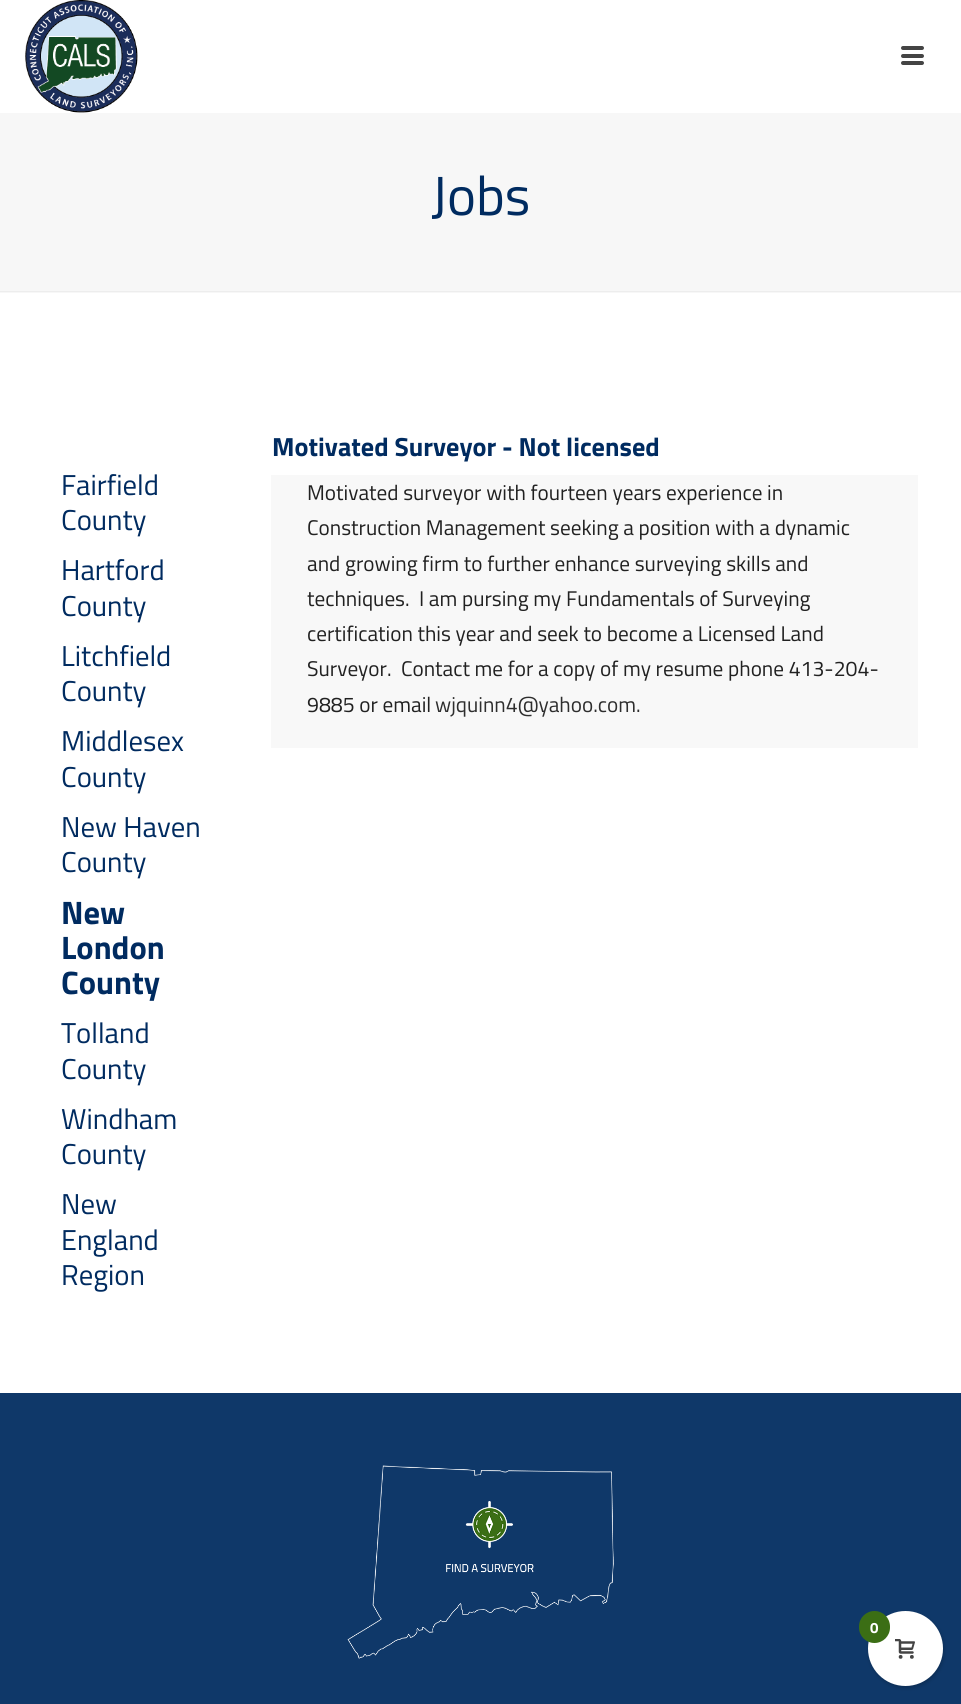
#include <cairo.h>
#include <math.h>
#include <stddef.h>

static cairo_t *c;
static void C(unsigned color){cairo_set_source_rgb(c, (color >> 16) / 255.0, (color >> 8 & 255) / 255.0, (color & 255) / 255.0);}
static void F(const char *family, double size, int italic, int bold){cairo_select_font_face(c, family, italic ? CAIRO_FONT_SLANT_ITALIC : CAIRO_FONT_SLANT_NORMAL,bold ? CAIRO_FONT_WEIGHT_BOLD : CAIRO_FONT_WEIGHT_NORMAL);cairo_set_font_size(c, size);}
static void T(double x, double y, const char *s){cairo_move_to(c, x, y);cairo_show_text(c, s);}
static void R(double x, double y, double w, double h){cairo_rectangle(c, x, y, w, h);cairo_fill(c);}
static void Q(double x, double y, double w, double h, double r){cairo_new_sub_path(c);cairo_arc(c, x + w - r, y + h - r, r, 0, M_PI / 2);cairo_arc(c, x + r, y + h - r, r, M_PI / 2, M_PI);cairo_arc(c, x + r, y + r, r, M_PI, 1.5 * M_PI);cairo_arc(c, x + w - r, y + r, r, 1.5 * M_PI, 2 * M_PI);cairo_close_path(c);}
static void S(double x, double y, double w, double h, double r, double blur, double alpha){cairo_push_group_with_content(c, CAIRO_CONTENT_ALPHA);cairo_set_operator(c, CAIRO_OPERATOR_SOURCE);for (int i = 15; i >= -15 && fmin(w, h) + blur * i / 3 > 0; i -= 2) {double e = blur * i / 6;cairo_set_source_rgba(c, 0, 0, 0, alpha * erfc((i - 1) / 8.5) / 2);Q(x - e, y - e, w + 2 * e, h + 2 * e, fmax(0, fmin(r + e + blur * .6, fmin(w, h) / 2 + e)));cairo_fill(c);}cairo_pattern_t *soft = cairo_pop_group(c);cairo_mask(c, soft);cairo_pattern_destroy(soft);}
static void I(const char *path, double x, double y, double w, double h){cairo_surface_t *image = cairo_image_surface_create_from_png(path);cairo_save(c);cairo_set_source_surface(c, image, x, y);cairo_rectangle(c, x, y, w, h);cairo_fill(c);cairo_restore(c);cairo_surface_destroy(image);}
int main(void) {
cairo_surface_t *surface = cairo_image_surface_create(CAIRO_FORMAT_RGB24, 961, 1704);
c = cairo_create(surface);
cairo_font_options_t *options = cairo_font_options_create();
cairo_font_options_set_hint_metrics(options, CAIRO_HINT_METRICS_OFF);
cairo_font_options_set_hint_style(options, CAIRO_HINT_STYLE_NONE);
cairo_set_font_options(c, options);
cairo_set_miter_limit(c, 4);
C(0xffffff);
cairo_paint(c);
C(0xf7f7f7);
R(0,113,961,180);
C(0xededed);
R(0,291,961,1);
I("1.png",25,0,113,113);
C(0x444444);
Q(901,46,23,4,2);
cairo_fill(c);
Q(901,54,23,4,2);
cairo_fill(c);
Q(901,61,23,4,2);
cairo_fill(c);
F("Titillium Web",55,0,0);
C(0x002b60);
T(431,215,"Jobs");
F("Titillium Web",28.75,0,0);
T(61,495,"Fairfield");
T(61,530,"County");
T(61,580,"Hartford");
T(61,616,"County");
T(61,666,"Litchfield");
T(61,701,"County");
T(61,751,"Middlesex");
T(61,787,"County");
T(61,837,"New Haven");
T(61,872,"County");
F("Titillium Web",32.5,0,1);
T(61,924,"New");
T(61,959,"London");
T(61,994,"County");
F("Titillium Web",28.75,0,0);
T(61,1043,"Tolland");
T(61,1079,"County");
T(61,1129,"Windham");
T(61,1164,"County");
T(61,1214,"New");
T(61,1250,"England");
T(61,1285,"Region");
F("Titillium Web",26.25,0,1);
T(272,456,"Motivated Surveyor - Not licensed");
C(0xf8f8f8);
R(271,475,647,273);
F("Titillium Web",21.25,0,0);
C(0x212121);
T(307,500,"Motivated surveyor with fourteen years experience in");
T(307,535,"Construction Management seeking a position with a dynamic");
T(307,571,"and growing firm to further enhance surveying skills and");
T(307,606,"techniques.  I am pursing my Fundamentals of Surveying");
T(307,641,"certification this year and seek to become a Licensed Land");
T(307,676,"Surveyor.  Contact me for a copy of my resume phone 413-204-");
T(307,712,"9885 or email");
C(0x2e2e2e);
T(435,712,"wjquinn4@yahoo.com.");
C(0x0f3869);
R(0,1393,961,311);
I("2.png",347,1465,267,194);
C(0x000000);
S(869,1613,75,75,37.5,2,.2);
C(0xffffff);
cairo_arc(c,905.5,1648.5,37.5,0,2 * M_PI);
cairo_fill(c);
C(0x3b6e15);
Q(859,1611,31,32,15.5);
cairo_fill(c);
F("Titillium Web",15,0,1);
C(0xffffff);
T(870,1633,"0");
I("3.png",895,1639,20,20);
cairo_surface_write_to_png(surface, "o.png");
cairo_font_options_destroy(options);
cairo_destroy(c);
cairo_surface_destroy(surface);
return 0;
}
